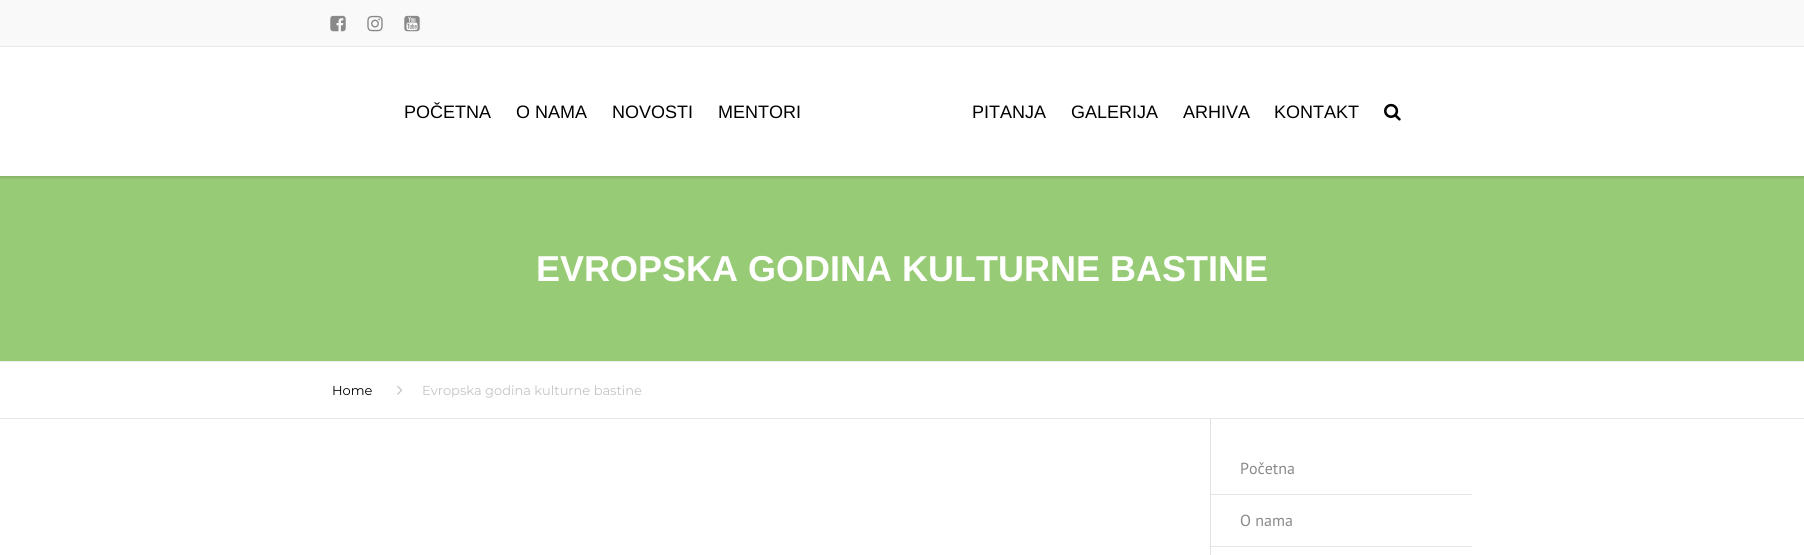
#include <cairo.h>
#include <math.h>
#include <stddef.h>

static cairo_t *c;
static void C(unsigned color){cairo_set_source_rgb(c, (color >> 16) / 255.0, (color >> 8 & 255) / 255.0, (color & 255) / 255.0);}
static void F(const char *family, double size, int italic, int bold){cairo_select_font_face(c, family, italic ? CAIRO_FONT_SLANT_ITALIC : CAIRO_FONT_SLANT_NORMAL,bold ? CAIRO_FONT_WEIGHT_BOLD : CAIRO_FONT_WEIGHT_NORMAL);cairo_set_font_size(c, size);}
static void T(double x, double y, const char *s){cairo_move_to(c, x, y);cairo_show_text(c, s);}
static void R(double x, double y, double w, double h){cairo_rectangle(c, x, y, w, h);cairo_fill(c);}
static void Q(double x, double y, double w, double h, double r){cairo_new_sub_path(c);cairo_arc(c, x + w - r, y + h - r, r, 0, M_PI / 2);cairo_arc(c, x + r, y + h - r, r, M_PI / 2, M_PI);cairo_arc(c, x + r, y + r, r, M_PI, 1.5 * M_PI);cairo_arc(c, x + w - r, y + r, r, 1.5 * M_PI, 2 * M_PI);cairo_close_path(c);}
static void S(double x, double y, double w, double h, double r, double blur, double alpha){cairo_push_group_with_content(c, CAIRO_CONTENT_ALPHA);cairo_set_operator(c, CAIRO_OPERATOR_SOURCE);for (int i = 15; i >= -15 && fmin(w, h) + blur * i / 3 > 0; i -= 2) {double e = blur * i / 6;cairo_set_source_rgba(c, 0, 0, 0, alpha * erfc((i - 1) / 8.5) / 2);Q(x - e, y - e, w + 2 * e, h + 2 * e, fmax(0, fmin(r + e + blur * .6, fmin(w, h) / 2 + e)));cairo_fill(c);}cairo_pattern_t *soft = cairo_pop_group(c);cairo_mask(c, soft);cairo_pattern_destroy(soft);}
static void I(const char *path, double x, double y, double w, double h){cairo_surface_t *image = cairo_image_surface_create_from_png(path);cairo_save(c);cairo_set_source_surface(c, image, x, y);cairo_rectangle(c, x, y, w, h);cairo_fill(c);cairo_restore(c);cairo_surface_destroy(image);}
int main(void) {
cairo_surface_t *surface = cairo_image_surface_create(CAIRO_FORMAT_RGB24, 1804, 555);
c = cairo_create(surface);
cairo_font_options_t *options = cairo_font_options_create();
cairo_font_options_set_hint_metrics(options, CAIRO_HINT_METRICS_OFF);
cairo_font_options_set_hint_style(options, CAIRO_HINT_STYLE_NONE);
cairo_set_font_options(c, options);
cairo_set_miter_limit(c, 4);
C(0xffffff);
cairo_paint(c);
C(0x97cb75);
R(0,176,1804,185);
cairo_save(c);
cairo_rectangle(c,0,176,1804,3);
cairo_clip(c);
C(0x000000);
S(-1,47,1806,131,0,1,.12);
cairo_restore(c);
C(0xf9f9f9);
R(0,0,1804,46);
C(0xe7e7e7);
R(0,46,1804,1);
I("1.png",330,15,16,17);
I("2.png",367,15,16,17);
I("3.png",404,15,16,17);
F("Liberation Sans",18,0,0);
C(0x000000);
T(404,118,"POČETNA");
T(516,118,"O NAMA");
T(612,118,"NOVOSTI");
T(718,118,"MENTORI");
T(972,118,"PITANJA");
T(1071,118,"GALERIJA");
T(1183,118,"ARHIVA");
T(1274,118,"KONTAKT");
I("4.png",1384,103,17,18);
C(0xeeeeee);
R(0,361,1804,1);
F("Liberation Sans",36,0,1);
C(0xffffff);
T(536,281,"EVROPSKA GODINA KULTURNE BASTINE");
C(0xe7e7e7);
R(0,418,1804,1);
F("Montserrat",13,0,0);
C(0x000000);
T(332,395,"Home");
I("5.png",397,386,6,9);
C(0xc3c3c3);
T(422,395,"Evropska godina kulturne bastine");
C(0xe5e5e5);
R(1210,494,262,1);
R(1210,546,262,1);
C(0xe1e2e2);
R(1210,419,1,136);
F("PT Sans",16,0,0);
C(0x898989);
T(1240,474,"Početna");
T(1240,526,"O nama");
cairo_surface_write_to_png(surface, "o.png");
cairo_font_options_destroy(options);
cairo_destroy(c);
cairo_surface_destroy(surface);
return 0;
}
